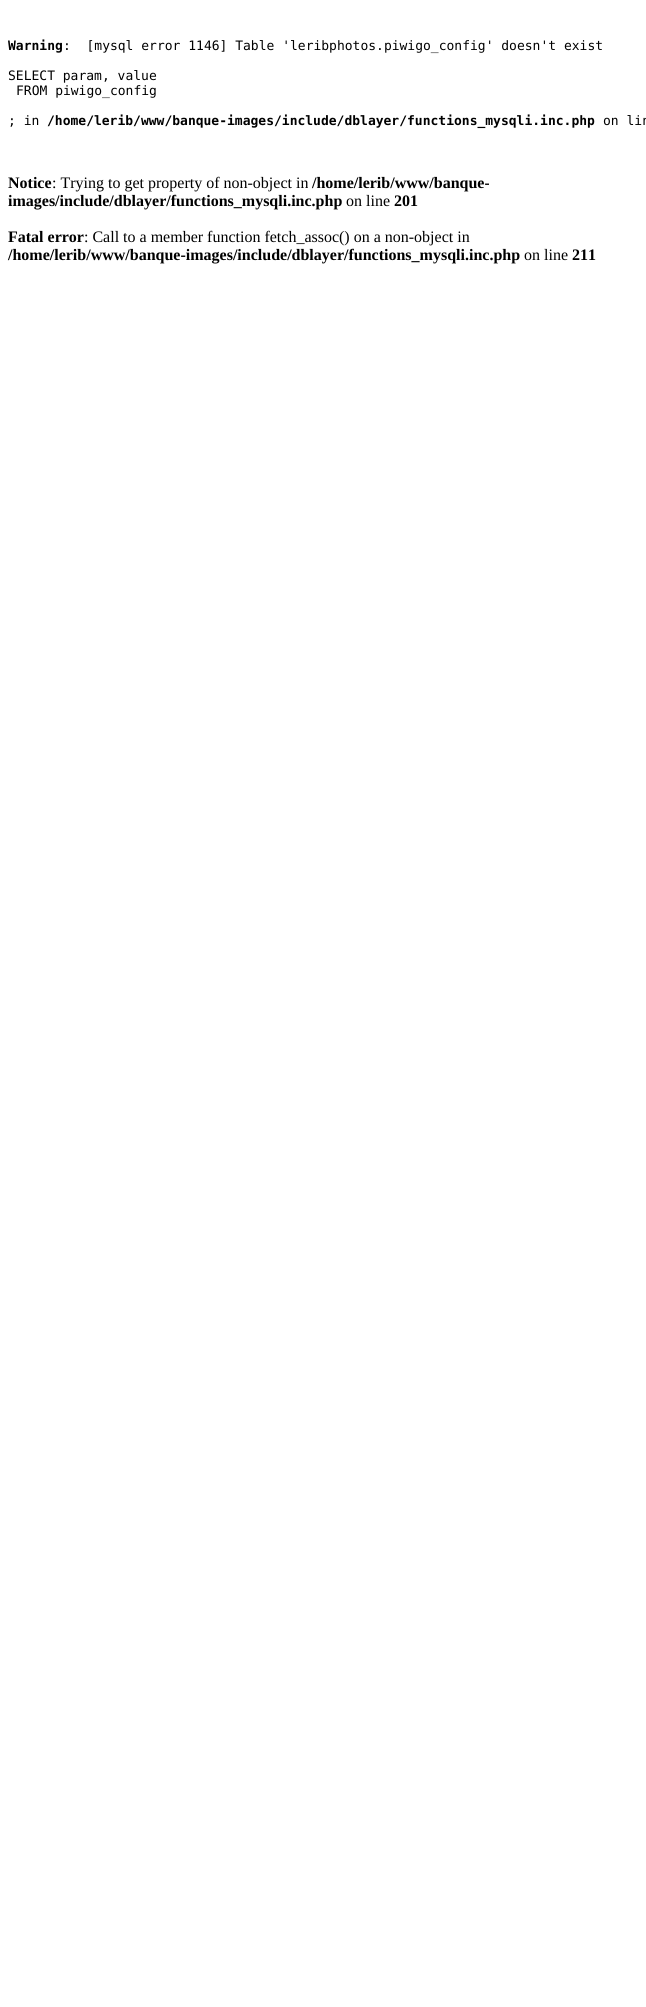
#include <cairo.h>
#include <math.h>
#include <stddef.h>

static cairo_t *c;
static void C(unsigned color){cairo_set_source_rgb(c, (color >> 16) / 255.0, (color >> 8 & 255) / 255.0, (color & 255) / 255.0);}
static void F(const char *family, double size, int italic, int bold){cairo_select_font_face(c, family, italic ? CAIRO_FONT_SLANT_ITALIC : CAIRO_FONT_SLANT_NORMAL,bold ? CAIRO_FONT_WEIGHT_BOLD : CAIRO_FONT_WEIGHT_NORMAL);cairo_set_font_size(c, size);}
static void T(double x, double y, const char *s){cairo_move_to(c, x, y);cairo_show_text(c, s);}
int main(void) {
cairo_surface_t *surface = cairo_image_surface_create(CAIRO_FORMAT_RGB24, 646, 2007);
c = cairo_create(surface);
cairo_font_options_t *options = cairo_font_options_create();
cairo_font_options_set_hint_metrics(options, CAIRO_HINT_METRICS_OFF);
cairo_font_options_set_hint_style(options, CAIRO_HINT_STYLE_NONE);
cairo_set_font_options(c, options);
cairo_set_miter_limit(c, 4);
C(0xffffff);
cairo_paint(c);
F("DejaVu Sans Mono",13,0,1);
C(0x000000);
T(8,50,"Warning");
F("DejaVu Sans Mono",13,0,0);
T(63,50,":  [mysql error 1146] Table 'leribphotos.piwigo_config' doesn't exist");
T(8,80,"SELECT param, value");
T(16,95,"FROM piwigo_config");
T(8,125,"; in");
F("DejaVu Sans Mono",13,0,1);
T(47,125,"/home/lerib/www/banque-images/include/dblayer/functions_mysqli.inc.php");
F("DejaVu Sans Mono",13,0,0);
T(603,125,"on lin");
F("Liberation Serif",16,0,1);
T(8,188,"Notice");
F("Liberation Serif",16,0,0);
T(52,188,": Trying to get property of non-object in");
F("Liberation Serif",16,0,1);
T(312,188,"/home/lerib/www/banque-");
T(8,206,"images/include/dblayer/functions_mysqli.inc.php");
F("Liberation Serif",16,0,0);
T(346,206,"on line");
F("Liberation Serif",16,0,1);
T(394,206,"201");
T(8,242,"Fatal error");
F("Liberation Serif",16,0,0);
T(84,242,": Call to a member function fetch_assoc() on a non-object in");
F("Liberation Serif",16,0,1);
T(8,260,"/home/lerib/www/banque-images/include/dblayer/functions_mysqli.inc.php");
F("Liberation Serif",16,0,0);
T(524,260,"on line");
F("Liberation Serif",16,0,1);
T(572,260,"211");
cairo_surface_write_to_png(surface, "o.png");
cairo_font_options_destroy(options);
cairo_destroy(c);
cairo_surface_destroy(surface);
return 0;
}
